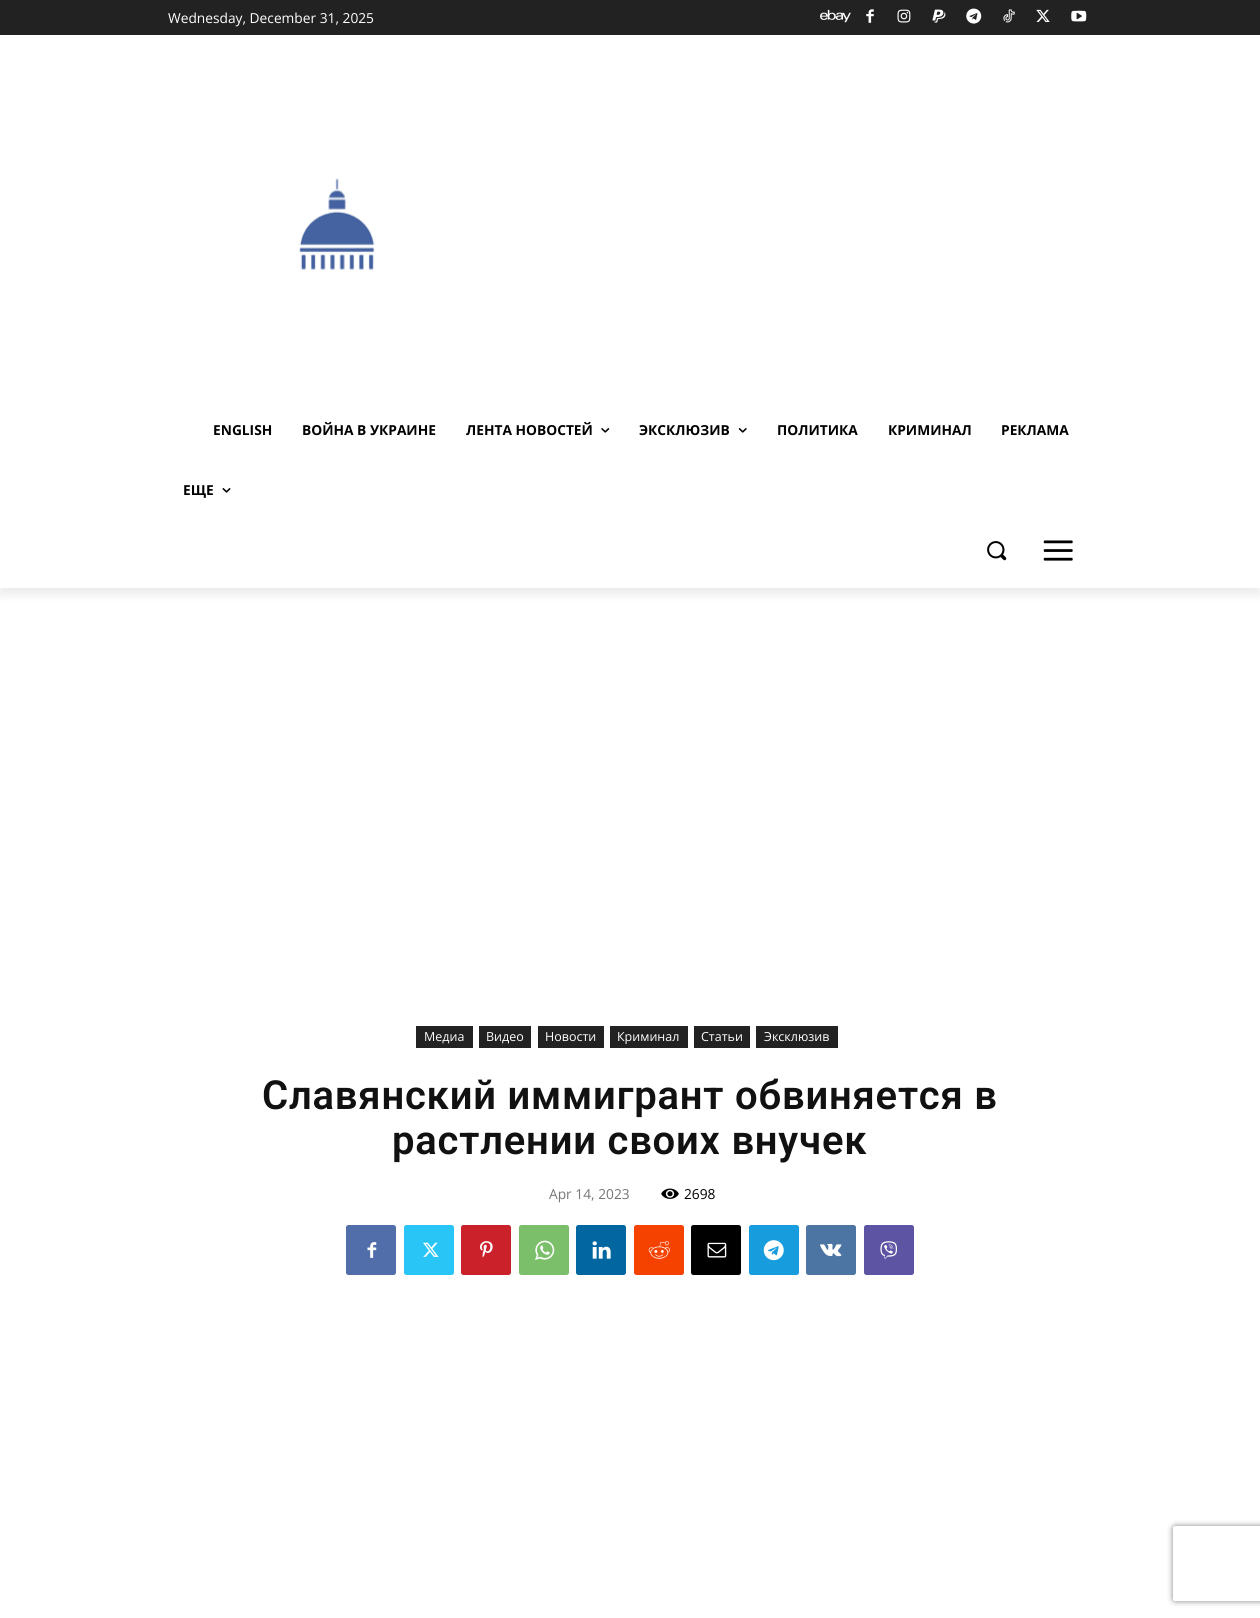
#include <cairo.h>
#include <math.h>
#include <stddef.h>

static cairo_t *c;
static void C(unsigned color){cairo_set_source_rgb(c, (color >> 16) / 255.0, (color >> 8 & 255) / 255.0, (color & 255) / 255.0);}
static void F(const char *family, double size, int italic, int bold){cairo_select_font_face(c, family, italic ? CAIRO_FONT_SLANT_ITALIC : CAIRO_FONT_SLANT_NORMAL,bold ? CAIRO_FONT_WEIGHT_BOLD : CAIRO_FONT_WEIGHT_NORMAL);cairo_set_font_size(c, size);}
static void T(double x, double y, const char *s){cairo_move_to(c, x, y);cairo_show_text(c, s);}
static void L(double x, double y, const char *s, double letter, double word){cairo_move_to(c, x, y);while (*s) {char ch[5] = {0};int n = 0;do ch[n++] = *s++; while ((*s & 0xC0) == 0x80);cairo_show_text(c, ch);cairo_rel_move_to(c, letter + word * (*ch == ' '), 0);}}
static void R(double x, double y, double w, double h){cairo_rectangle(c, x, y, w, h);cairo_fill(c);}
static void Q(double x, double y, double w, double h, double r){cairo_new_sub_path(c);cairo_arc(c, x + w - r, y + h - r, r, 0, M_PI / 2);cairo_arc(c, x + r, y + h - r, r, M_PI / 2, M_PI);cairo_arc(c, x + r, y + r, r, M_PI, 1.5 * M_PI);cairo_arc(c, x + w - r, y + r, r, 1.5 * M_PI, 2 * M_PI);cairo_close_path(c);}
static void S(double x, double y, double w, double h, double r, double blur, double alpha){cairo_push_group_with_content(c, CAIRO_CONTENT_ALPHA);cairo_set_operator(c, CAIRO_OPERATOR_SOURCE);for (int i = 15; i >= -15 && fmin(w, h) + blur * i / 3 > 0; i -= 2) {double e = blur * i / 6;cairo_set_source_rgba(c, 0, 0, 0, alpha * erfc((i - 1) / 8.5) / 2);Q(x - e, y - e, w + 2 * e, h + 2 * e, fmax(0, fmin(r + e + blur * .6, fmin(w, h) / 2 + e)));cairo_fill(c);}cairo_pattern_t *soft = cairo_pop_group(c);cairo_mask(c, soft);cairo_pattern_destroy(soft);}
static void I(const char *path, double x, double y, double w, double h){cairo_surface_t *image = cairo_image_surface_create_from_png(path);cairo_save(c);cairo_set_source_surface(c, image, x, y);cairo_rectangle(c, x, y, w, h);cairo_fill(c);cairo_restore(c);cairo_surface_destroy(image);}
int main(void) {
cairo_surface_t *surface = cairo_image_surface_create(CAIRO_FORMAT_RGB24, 1260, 1618);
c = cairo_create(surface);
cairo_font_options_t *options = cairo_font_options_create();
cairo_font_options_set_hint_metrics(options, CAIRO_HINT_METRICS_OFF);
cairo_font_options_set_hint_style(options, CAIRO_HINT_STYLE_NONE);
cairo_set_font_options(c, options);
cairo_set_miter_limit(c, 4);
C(0xffffff);
cairo_paint(c);
C(0x222222);
R(0,0,1260,35);
I("1.png",820,9,31,14);
I("2.png",866,9,8,14);
I("3.png",897,9,14,14);
I("4.png",932,9,14,14);
I("5.png",966,8,16,16);
I("6.png",1003,9,12,14);
I("7.png",1036,9,14,13);
I("8.png",1071,10,16,12);
I("9.png",299,178,76,92);
I("14.png",1043,540,30,21);
cairo_save(c);
cairo_set_fill_rule(c,CAIRO_FILL_RULE_EVEN_ODD);
cairo_new_path(c);
cairo_move_to(c,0,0);
cairo_line_to(c,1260,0);
cairo_line_to(c,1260,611);
cairo_line_to(c,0,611);
cairo_close_path(c);
cairo_move_to(c,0,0);
cairo_line_to(c,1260,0);
cairo_line_to(c,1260,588);
cairo_line_to(c,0,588);
cairo_close_path(c);
cairo_clip(c);
C(0x000000);
S(0,8,1260,587,0,5,.08);
cairo_restore(c);
F("Open Sans",13.75,0,0);
C(0xffffff);
T(168,23,"Wednesday, December 31, 2025");
F("Open Sans",13.75,0,1);
C(0x000000);
T(213,435,"ENGLISH");
T(302,435,"ВОЙНА В УКРАИНЕ");
T(466,435,"ЛЕНТА НОВОСТЕЙ");
I("10.png",601,428,9,5);
T(639,435,"ЭКСКЛЮЗИВ");
I("11.png",738,428,9,5);
T(777,435,"ПОЛИТИКА");
T(888,435,"КРИМИНАЛ");
T(1001,435,"РЕКЛАМА");
T(183,495,"ЕЩЕ");
I("12.png",222,488,9,5);
I("13.png",987,541,20,20);
C(0x222222);
R(416,1026,57,22);
F("Open Sans",12.5,0,0);
C(0xffffff);
T(424,1041,"Медиа");
C(0x222222);
R(479,1026,52,22);
C(0xffffff);
T(486,1041,"Видео");
C(0x222222);
R(538,1026,66,22);
C(0xffffff);
T(545,1041,"Новости");
C(0x222222);
R(610,1026,78,22);
C(0xffffff);
T(617,1041,"Криминал");
C(0x222222);
R(694,1026,56,22);
C(0xffffff);
T(701,1041,"Статьи");
C(0x222222);
R(756,1026,82,22);
C(0xffffff);
T(764,1041,"Эксклюзив");
F("Roboto SemiBold",40,0,0);
C(0x111111);
L(262,1109,"Славянский иммигрант обвиняется в",.8,0);
L(392,1154,"растлении своих внучек",.8,0);
F("Open Sans",13.75,0,0);
C(0x767676);
T(549,1199,"Apr 14, 2023");
I("15.png",661,1188,18,11);
C(0x000000);
T(684,1199,"2698");
C(0x516eab);
Q(346,1225,50,50,2.5);
cairo_fill(c);
I("16.png",367,1242,10,16);
C(0x29c5f6);
Q(404,1225,50,50,2.5);
cairo_fill(c);
I("17.png",423,1242,16,15);
C(0xca212a);
Q(461,1225,50,50,2.5);
cairo_fill(c);
I("18.png",480,1241,13,17);
C(0x7bbf6a);
Q(519,1225,50,50,2.5);
cairo_fill(c);
I("19.png",535,1240,20,20);
C(0x0266a0);
Q(576,1225,50,50,2.5);
cairo_fill(c);
I("20.png",592,1241,19,18);
C(0xf54200);
Q(634,1225,50,50,2.5);
cairo_fill(c);
I("21.png",648,1241,22,18);
C(0x000000);
Q(691,1225,50,50,2.5);
cairo_fill(c);
I("22.png",707,1242,20,16);
C(0x179cde);
Q(749,1225,50,50,2.5);
cairo_fill(c);
I("23.png",763,1240,21,21);
C(0x4c75a3);
Q(806,1225,50,50,2.5);
cairo_fill(c);
I("24.png",820,1243,22,14);
C(0x5d54a4);
Q(864,1225,50,50,2.5);
cairo_fill(c);
I("25.png",880,1241,17,18);
cairo_save(c);
cairo_set_fill_rule(c,CAIRO_FILL_RULE_EVEN_ODD);
cairo_new_path(c);
cairo_move_to(c,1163,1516);
cairo_line_to(c,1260,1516);
cairo_line_to(c,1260,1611);
cairo_line_to(c,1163,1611);
cairo_close_path(c);
cairo_move_to(c,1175.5,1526);
cairo_line_to(c,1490.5,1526);
cairo_curve_to(c,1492,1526,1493,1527,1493,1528.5);
cairo_line_to(c,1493,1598.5);
cairo_curve_to(c,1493,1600,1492,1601,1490.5,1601);
cairo_line_to(c,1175.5,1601);
cairo_curve_to(c,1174,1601,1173,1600,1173,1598.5);
cairo_line_to(c,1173,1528.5);
cairo_curve_to(c,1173,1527,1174,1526,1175.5,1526);
cairo_close_path(c);
cairo_clip(c);
C(0x808080);
S(1173,1526,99,75,2.5,3,1);
cairo_restore(c);
cairo_surface_write_to_png(surface, "o.png");
cairo_font_options_destroy(options);
cairo_destroy(c);
cairo_surface_destroy(surface);
return 0;
}
